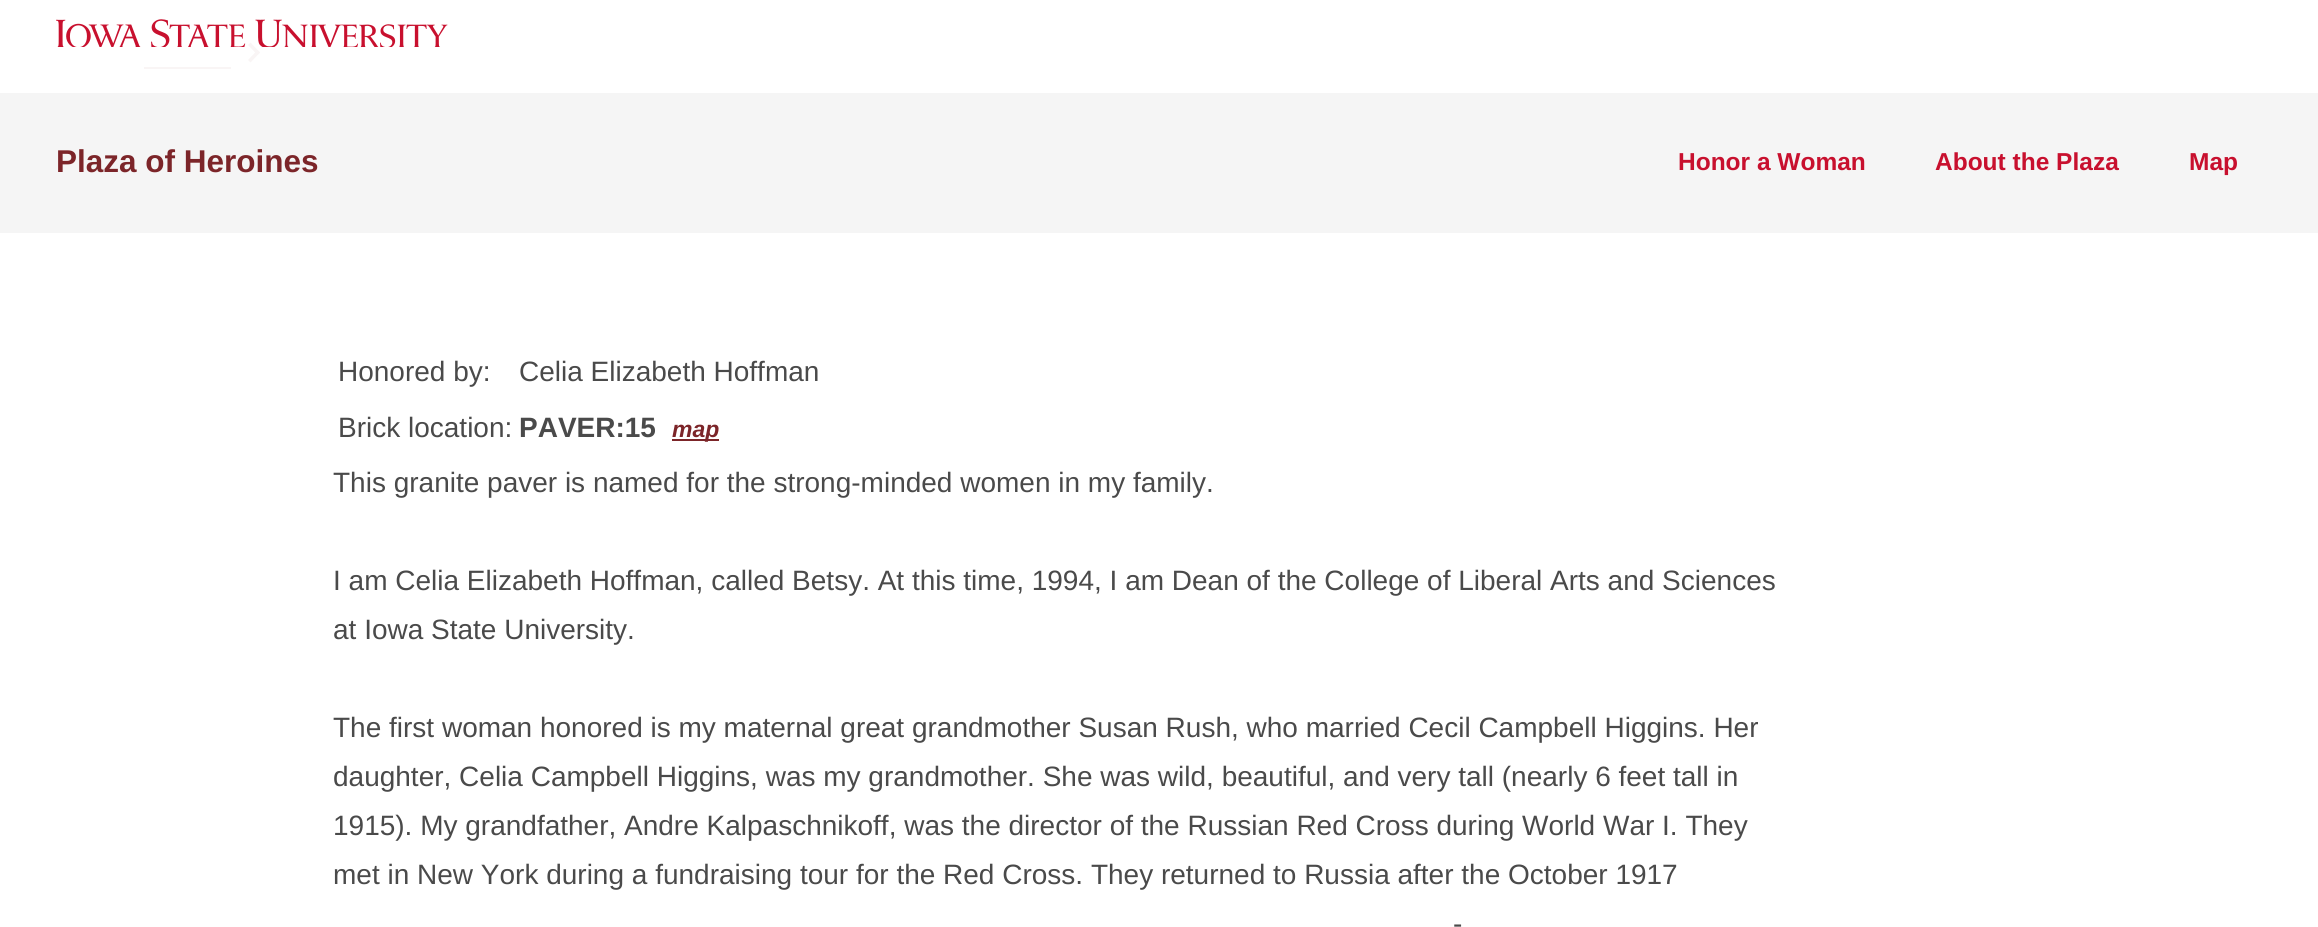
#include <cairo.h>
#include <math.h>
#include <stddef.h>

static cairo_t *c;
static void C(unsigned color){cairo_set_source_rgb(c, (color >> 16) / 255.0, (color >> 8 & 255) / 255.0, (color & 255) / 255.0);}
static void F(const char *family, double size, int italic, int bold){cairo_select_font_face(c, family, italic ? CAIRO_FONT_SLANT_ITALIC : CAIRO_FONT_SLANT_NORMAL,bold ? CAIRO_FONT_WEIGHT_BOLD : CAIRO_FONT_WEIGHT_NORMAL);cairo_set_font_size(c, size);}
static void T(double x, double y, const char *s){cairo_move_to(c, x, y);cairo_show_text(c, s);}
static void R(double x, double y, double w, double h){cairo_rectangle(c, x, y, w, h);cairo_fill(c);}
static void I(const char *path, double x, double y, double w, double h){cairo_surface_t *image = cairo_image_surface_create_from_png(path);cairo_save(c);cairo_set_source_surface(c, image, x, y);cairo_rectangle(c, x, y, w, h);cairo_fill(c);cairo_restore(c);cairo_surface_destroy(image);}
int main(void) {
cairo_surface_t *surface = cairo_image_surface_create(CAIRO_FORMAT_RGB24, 2318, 927);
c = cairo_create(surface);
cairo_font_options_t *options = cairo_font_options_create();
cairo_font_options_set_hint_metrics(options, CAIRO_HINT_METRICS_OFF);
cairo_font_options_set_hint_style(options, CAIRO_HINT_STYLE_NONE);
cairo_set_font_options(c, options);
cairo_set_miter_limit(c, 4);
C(0xffffff);
cairo_paint(c);
C(0x7c2529);
cairo_new_path(c);
cairo_move_to(c,248,45);
cairo_line_to(c,250.5,42.5);
cairo_line_to(c,260,52.5);
cairo_line_to(c,257.5,55);
cairo_close_path(c);
cairo_fill(c);
cairo_new_path(c);
cairo_move_to(c,248,60);
cairo_line_to(c,257.5,50);
cairo_line_to(c,260,52.5);
cairo_line_to(c,250.5,62.5);
cairo_close_path(c);
cairo_fill(c);
R(144,67,87,2);
cairo_set_source_rgba(c,1,1,1,0.95);
R(144,42,116,27);
I("1.png",56,19,392,28);
C(0xf5f5f5);
R(0,93,2318,140);
F("Liberation Sans",31.5,0,1);
C(0x7c2529);
T(56,172,"Plaza of Heroines");
F("Liberation Sans",24.5,0,1);
C(0xc8102e);
T(1678,170,"Honor a Woman");
T(1935,170,"About the Plaza");
T(2189,170,"Map");
F("Liberation Sans",28,0,0);
C(0x4a4a4a);
T(338,381,"Honored by:");
T(519,381,"Celia Elizabeth Hoffman");
T(338,437,"Brick location:");
F("Liberation Sans",28,0,1);
T(519,437,"PAVER:15");
C(0x7c2529);
R(672,439,47,2);
F("Liberation Sans",23,1,1);
T(672,437,"map");
F("Liberation Sans",28,0,0);
C(0x4a4a4a);
T(333,492,"This granite paver is named for the strong-minded women in my family.");
T(333,590,"I am Celia Elizabeth Hoffman, called Betsy. At this time, 1994, I am Dean of the College of Liberal Arts and Sciences");
T(333,639,"at Iowa State University.");
T(333,737,"The first woman honored is my maternal great grandmother Susan Rush, who married Cecil Campbell Higgins. Her");
T(333,786,"daughter, Celia Campbell Higgins, was my grandmother. She was wild, beautiful, and very tall (nearly 6 feet tall in");
T(333,835,"1915). My grandfather, Andre Kalpaschnikoff, was the director of the Russian Red Cross during World War I. They");
T(333,884,"met in New York during a fundraising tour for the Red Cross. They returned to Russia after the October 1917");
T(1453,933,"-");
cairo_surface_write_to_png(surface, "o.png");
cairo_font_options_destroy(options);
cairo_destroy(c);
cairo_surface_destroy(surface);
return 0;
}
